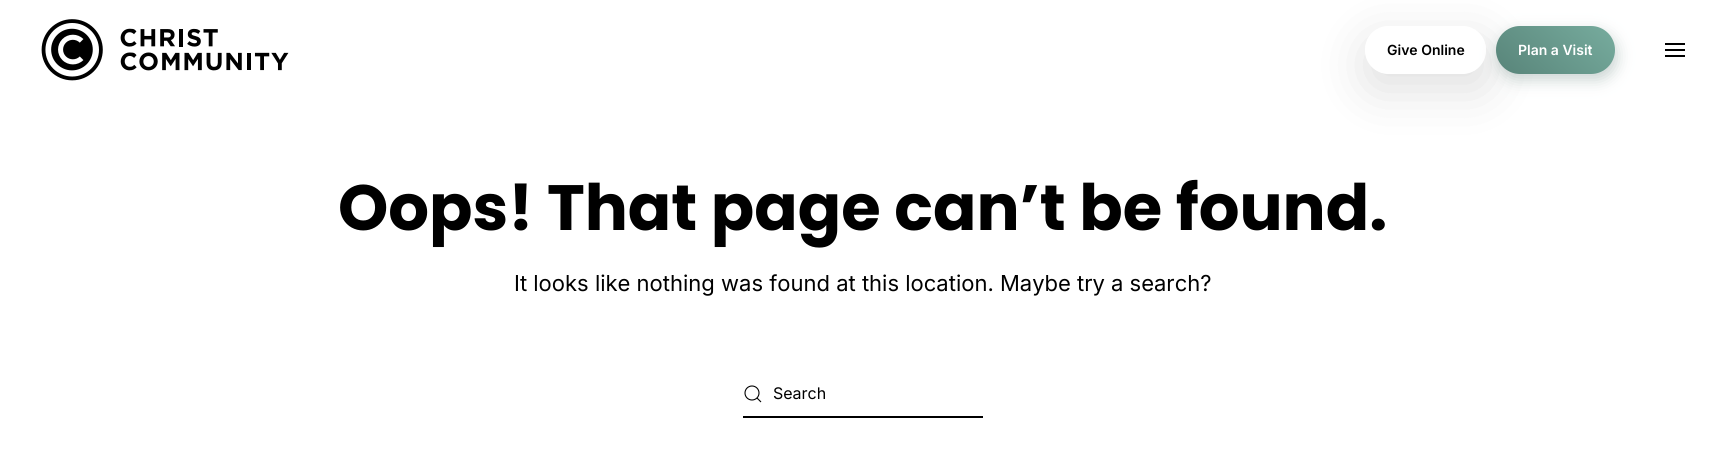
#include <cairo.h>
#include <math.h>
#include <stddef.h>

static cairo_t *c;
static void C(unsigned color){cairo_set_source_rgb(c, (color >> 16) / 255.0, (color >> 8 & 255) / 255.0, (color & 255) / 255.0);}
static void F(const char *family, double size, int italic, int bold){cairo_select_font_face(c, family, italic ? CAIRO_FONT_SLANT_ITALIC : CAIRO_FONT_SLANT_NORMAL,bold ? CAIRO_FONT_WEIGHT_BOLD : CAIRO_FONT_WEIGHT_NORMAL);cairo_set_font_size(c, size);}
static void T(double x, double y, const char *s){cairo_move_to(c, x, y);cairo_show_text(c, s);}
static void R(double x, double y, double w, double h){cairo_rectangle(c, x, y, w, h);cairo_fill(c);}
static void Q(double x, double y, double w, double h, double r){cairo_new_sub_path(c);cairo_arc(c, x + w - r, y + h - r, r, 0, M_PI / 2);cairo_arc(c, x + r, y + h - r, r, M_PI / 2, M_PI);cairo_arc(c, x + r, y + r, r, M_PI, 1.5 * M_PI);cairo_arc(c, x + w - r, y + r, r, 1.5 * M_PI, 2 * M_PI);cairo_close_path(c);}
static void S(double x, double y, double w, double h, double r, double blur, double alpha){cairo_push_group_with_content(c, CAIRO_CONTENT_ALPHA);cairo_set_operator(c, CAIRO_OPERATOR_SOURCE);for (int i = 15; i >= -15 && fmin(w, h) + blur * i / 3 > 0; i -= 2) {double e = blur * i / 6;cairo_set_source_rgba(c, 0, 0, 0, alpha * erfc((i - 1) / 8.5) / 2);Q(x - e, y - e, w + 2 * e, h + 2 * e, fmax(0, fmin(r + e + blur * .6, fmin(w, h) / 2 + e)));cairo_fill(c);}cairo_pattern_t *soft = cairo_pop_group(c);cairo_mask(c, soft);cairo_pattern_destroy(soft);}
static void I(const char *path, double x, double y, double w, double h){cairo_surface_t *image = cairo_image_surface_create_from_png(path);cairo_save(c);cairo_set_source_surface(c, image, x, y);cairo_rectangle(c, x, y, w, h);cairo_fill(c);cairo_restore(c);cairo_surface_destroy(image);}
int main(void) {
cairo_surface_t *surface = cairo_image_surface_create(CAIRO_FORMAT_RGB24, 1725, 455);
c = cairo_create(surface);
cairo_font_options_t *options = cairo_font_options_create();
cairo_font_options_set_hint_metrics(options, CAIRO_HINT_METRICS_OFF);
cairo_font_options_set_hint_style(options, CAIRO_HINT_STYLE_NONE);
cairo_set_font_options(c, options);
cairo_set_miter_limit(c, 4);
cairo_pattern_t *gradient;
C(0xffffff);
cairo_paint(c);
I("1.png",41,19,248,62);
cairo_save(c);
cairo_set_fill_rule(c,CAIRO_FILL_RULE_EVEN_ODD);
cairo_new_path(c);
cairo_move_to(c,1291,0);
cairo_line_to(c,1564,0);
cairo_line_to(c,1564,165);
cairo_line_to(c,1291,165);
cairo_close_path(c);
cairo_move_to(c,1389,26);
cairo_line_to(c,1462,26);
cairo_curve_to(c,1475.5,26,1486,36.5,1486,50);
cairo_curve_to(c,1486,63.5,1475.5,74,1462,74);
cairo_line_to(c,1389,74);
cairo_curve_to(c,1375.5,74,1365,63.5,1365,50);
cairo_curve_to(c,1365,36.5,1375.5,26,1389,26);
cairo_close_path(c);
cairo_clip(c);
C(0x000000);
S(1367,41,121,48,24,25,.13);
cairo_restore(c);
F("Inter SemiBold",14,0,0);
C(0x000000);
T(1387,55,"Give Online");
C(0x7c958f);
S(1498,32,119,48,24,7.5,.4);
gradient = cairo_pattern_create_linear(1594,7.2,1517,93);
cairo_pattern_add_color_stop_rgba(gradient,0,0.467,0.675,0.62,1);
cairo_pattern_add_color_stop_rgba(gradient,1,0.345,0.518,0.475,1);
cairo_set_source(c,gradient);
cairo_pattern_destroy(gradient);
Q(1496,26,119,48,24);
cairo_fill(c);
C(0xffffff);
T(1518,55,"Plan a Visit");
C(0x000000);
R(1665,43,20,2);
R(1665,49,20,2);
R(1665,55,20,2);
F("Poppins",64,0,1);
T(338,230,"Oops! That page can’t be found.");
F("Inter",22,0,0);
T(514,291,"It looks like nothing was found at this location. Maybe try a search?");
cairo_new_path(c);
cairo_arc(c,752,393,7,0,2 * M_PI);
cairo_set_line_width(c,1.1);
cairo_stroke(c);
cairo_new_path(c);
cairo_move_to(c,757,398);
cairo_line_to(c,761,402);
cairo_close_path(c);
cairo_stroke(c);
R(743,416,240,2);
F("Inter",16,0,0);
T(773,399,"Search");
cairo_surface_write_to_png(surface, "o.png");
cairo_font_options_destroy(options);
cairo_destroy(c);
cairo_surface_destroy(surface);
return 0;
}
